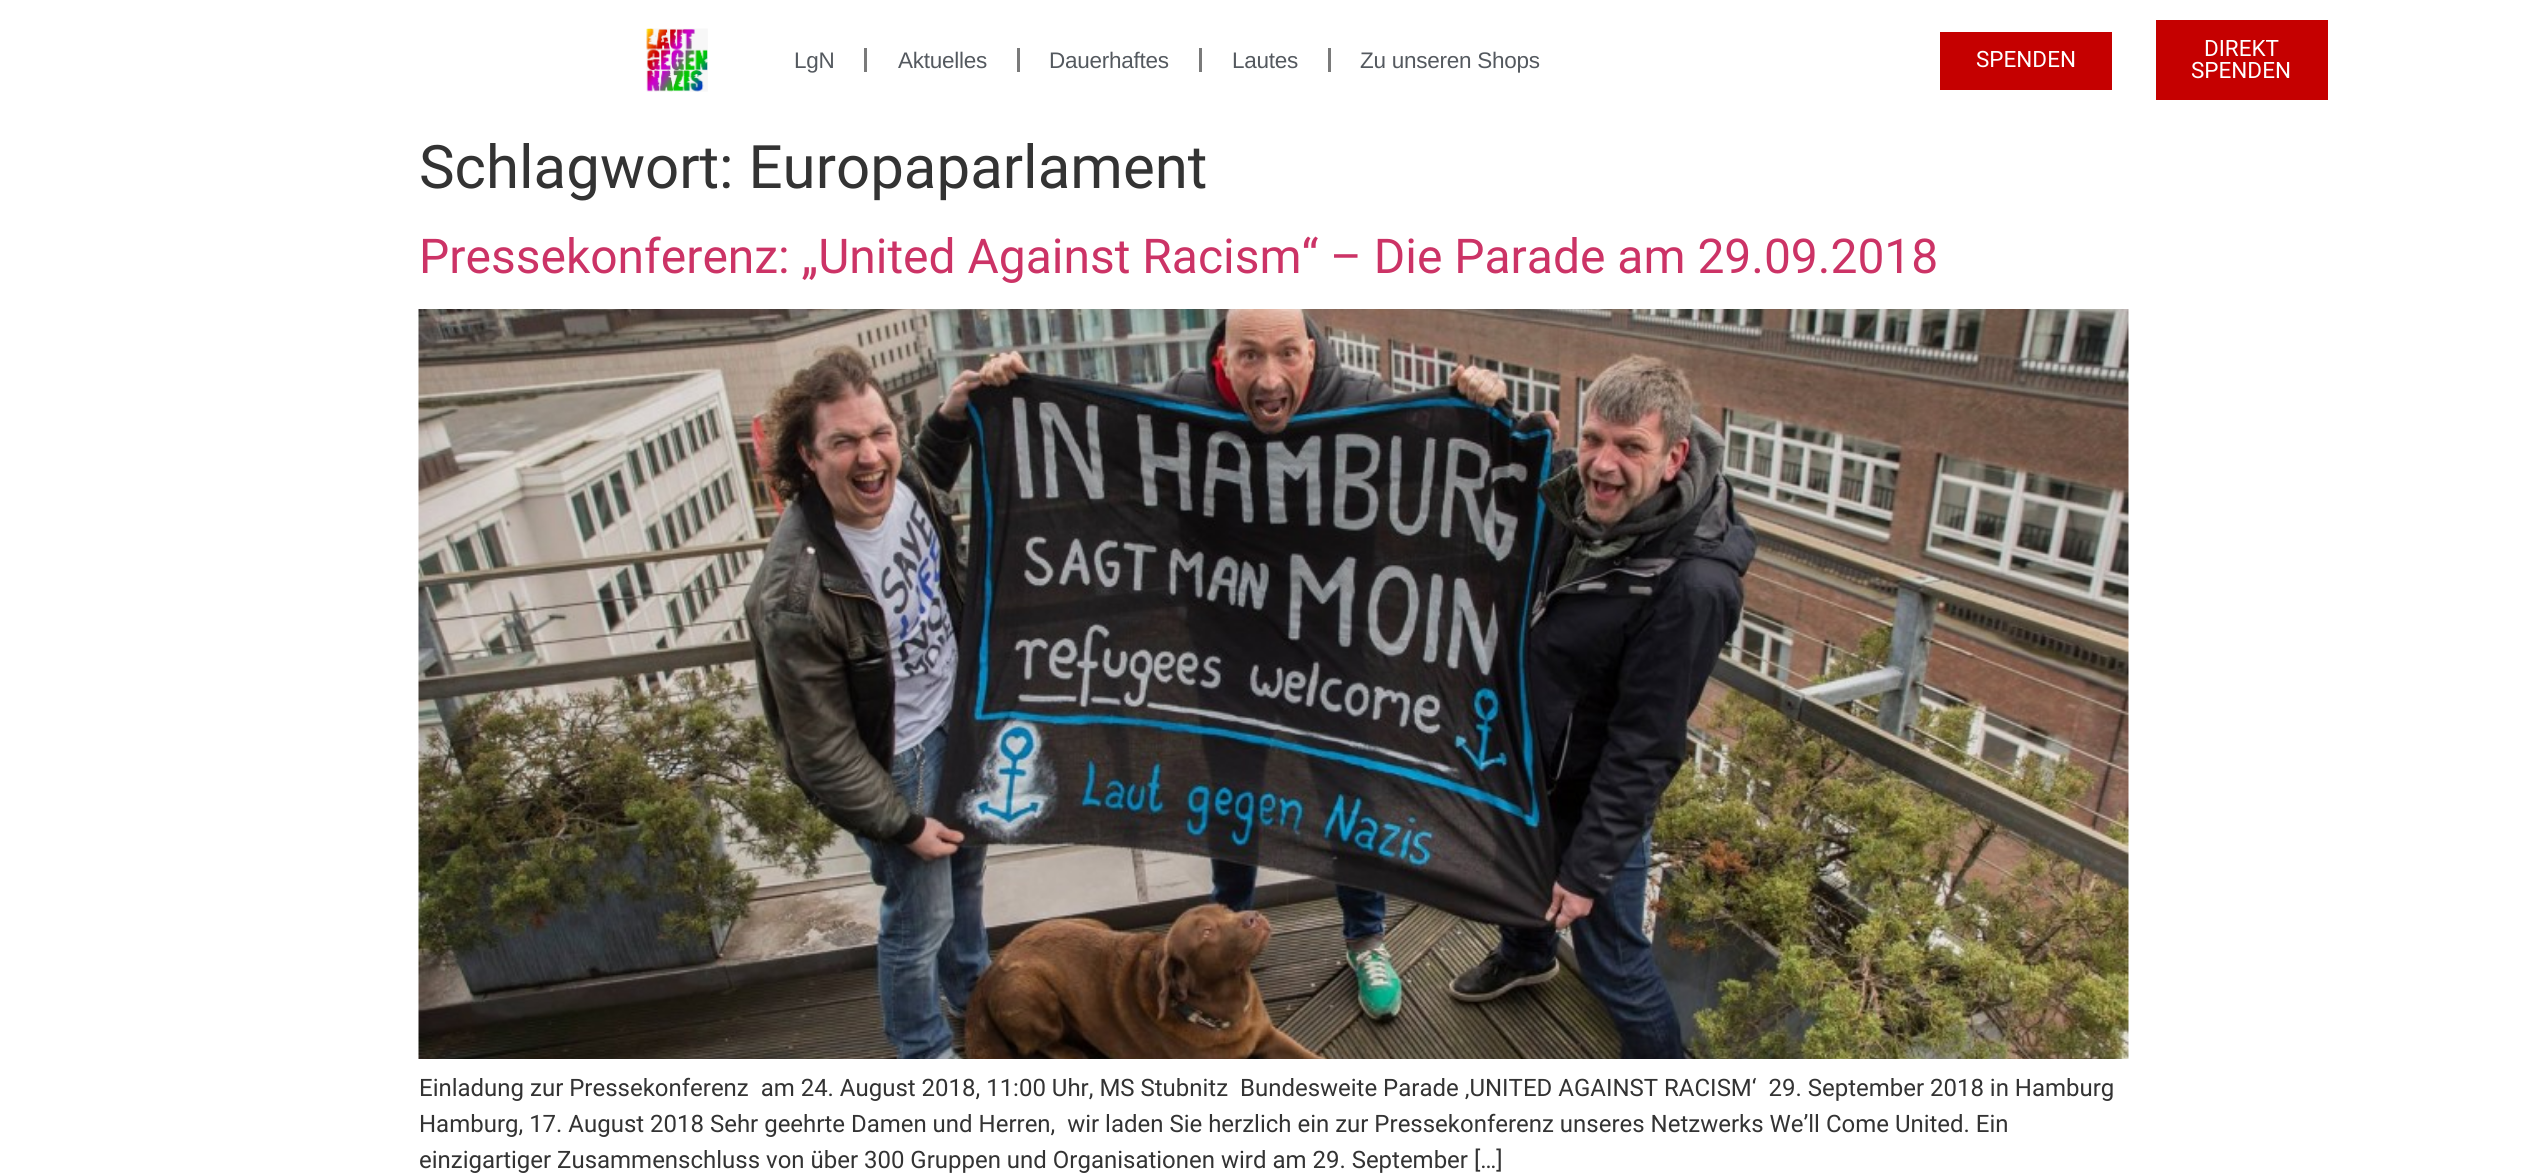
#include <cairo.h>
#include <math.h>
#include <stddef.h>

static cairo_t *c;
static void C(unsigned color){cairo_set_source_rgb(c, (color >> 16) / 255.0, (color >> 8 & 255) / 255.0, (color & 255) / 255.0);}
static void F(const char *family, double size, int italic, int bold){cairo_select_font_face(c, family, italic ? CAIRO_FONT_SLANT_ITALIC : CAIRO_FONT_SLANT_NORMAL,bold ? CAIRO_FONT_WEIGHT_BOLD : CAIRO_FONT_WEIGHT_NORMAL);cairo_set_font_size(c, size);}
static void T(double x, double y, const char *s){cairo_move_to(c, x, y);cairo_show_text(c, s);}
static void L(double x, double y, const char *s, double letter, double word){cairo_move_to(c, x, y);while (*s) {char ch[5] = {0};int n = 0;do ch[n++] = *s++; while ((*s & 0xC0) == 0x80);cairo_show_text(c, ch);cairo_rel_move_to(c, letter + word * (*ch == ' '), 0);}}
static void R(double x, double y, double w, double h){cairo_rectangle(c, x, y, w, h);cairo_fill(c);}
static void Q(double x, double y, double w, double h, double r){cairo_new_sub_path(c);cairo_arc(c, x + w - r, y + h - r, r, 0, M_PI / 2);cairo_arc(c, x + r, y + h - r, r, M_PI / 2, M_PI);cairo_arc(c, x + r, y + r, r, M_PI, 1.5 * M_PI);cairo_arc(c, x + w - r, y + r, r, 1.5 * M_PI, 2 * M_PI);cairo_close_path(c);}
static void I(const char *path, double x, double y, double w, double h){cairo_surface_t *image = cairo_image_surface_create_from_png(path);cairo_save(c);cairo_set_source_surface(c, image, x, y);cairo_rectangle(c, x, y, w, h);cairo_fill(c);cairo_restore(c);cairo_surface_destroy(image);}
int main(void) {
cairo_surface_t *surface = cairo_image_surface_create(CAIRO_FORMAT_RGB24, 2547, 1174);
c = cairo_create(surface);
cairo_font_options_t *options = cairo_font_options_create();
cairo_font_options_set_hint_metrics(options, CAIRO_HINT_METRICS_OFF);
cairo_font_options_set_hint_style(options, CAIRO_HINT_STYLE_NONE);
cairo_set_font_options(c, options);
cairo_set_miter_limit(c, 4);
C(0xffffff);
cairo_paint(c);
I("1.png",646,28,62,64);
F("Liberation Sans",22.5,0,0);
C(0x54595f);
L(794,68,"LgN",-.25,0);
C(0x7a7a7a);
R(864,48,3,24);
C(0x54595f);
L(898,68,"Aktuelles",-.25,0);
C(0x7a7a7a);
R(1017,48,3,24);
C(0x54595f);
L(1049,68,"Dauerhaftes",-.25,0);
C(0x7a7a7a);
R(1199,48,3,24);
C(0x54595f);
L(1232,68,"Lautes",-.25,0);
C(0x7a7a7a);
R(1328,48,3,24);
C(0x54595f);
L(1360,68,"Zu unseren Shops",-.25,0);
C(0xc50000);
Q(1937.5,29.5,177,63,2.5);
cairo_fill_preserve(c);
C(0xffffff);
cairo_set_line_width(c,5);
cairo_stroke(c);
F("Roboto",22.5,0,0);
T(1976,67,"SPENDEN");
C(0xc50000);
Q(2153.5,17.5,177,85,2.5);
cairo_fill_preserve(c);
C(0xffffff);
cairo_stroke(c);
T(2204,56,"DIREKT");
T(2191,78,"SPENDEN");
F("Roboto",60,0,0);
C(0x333333);
T(419,188,"Schlagwort: Europaparlament");
F("Roboto",48,0,0);
C(0xcc3366);
T(419,273,"Pressekonferenz: „United Against Racism“ – Die Parade am 29.09.2018");
I("2.png",418,309,1711,750);
F("Roboto",24,0,0);
C(0x333333);
T(419,1096,"Einladung zur Pressekonferenz  am 24. August 2018, 11:00 Uhr, MS Stubnitz  Bundesweite Parade ‚UNITED AGAINST RACISM‘  29. September 2018 in Hamburg");
T(419,1132,"Hamburg, 17. August 2018 Sehr geehrte Damen und Herren,  wir laden Sie herzlich ein zur Pressekonferenz unseres Netzwerks We’ll Come United. Ein");
T(419,1168,"einzigartiger Zusammenschluss von über 300 Gruppen und Organisationen wird am 29. September […]");
cairo_surface_write_to_png(surface, "o.png");
cairo_font_options_destroy(options);
cairo_destroy(c);
cairo_surface_destroy(surface);
return 0;
}
